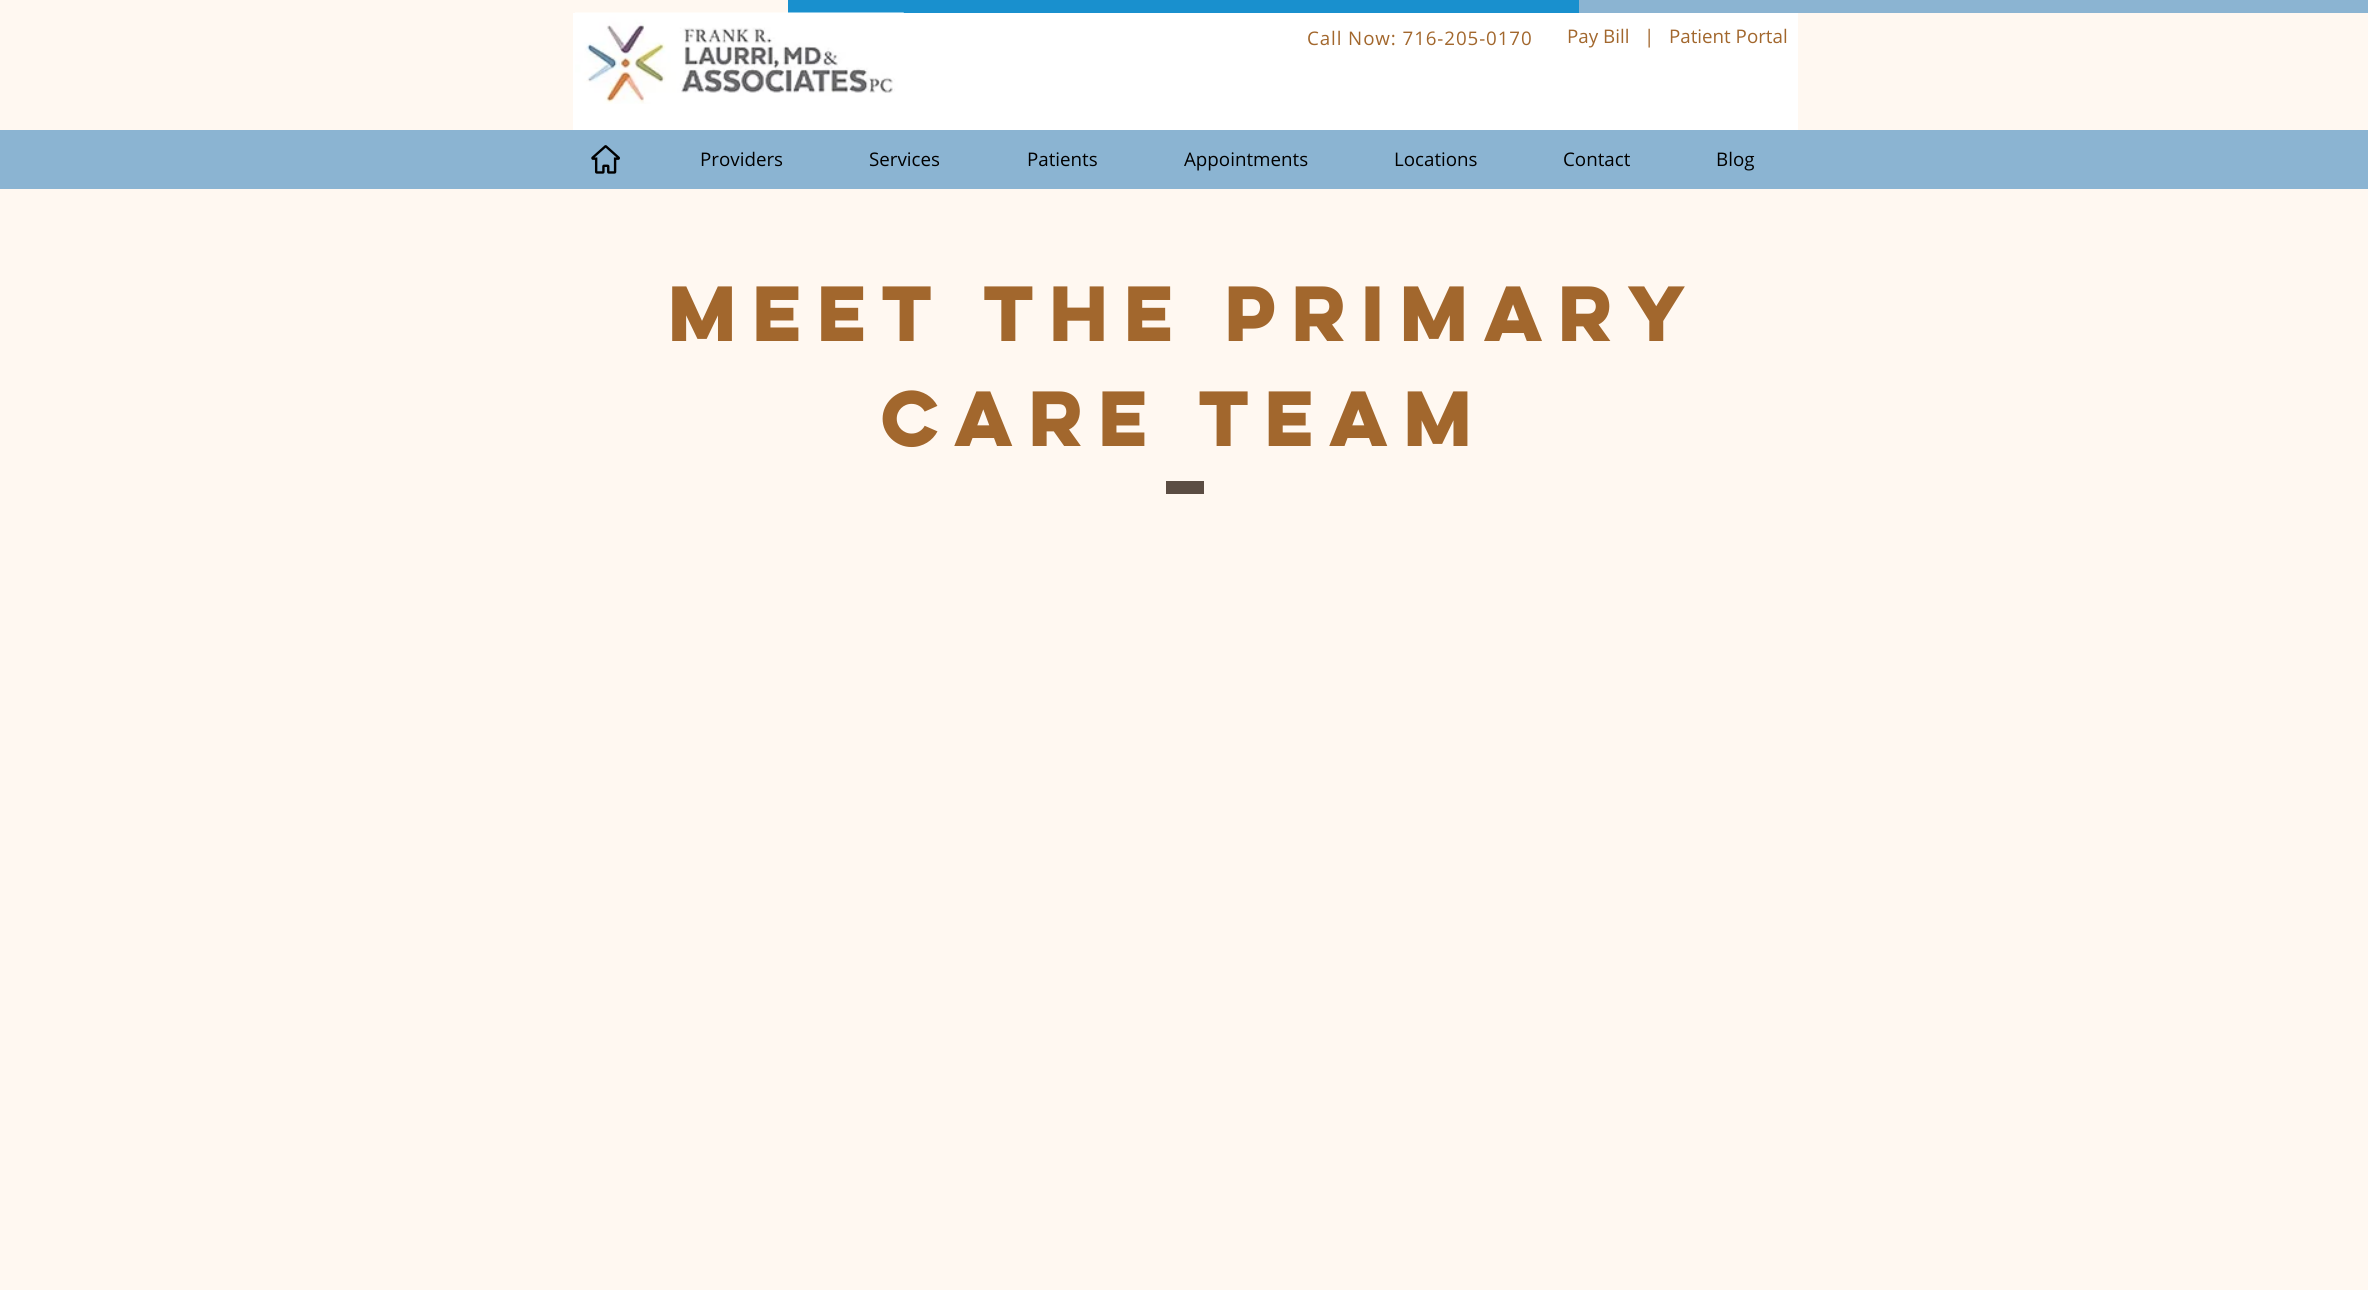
#include <cairo.h>
#include <math.h>
#include <stddef.h>

static cairo_t *c;
static void C(unsigned color){cairo_set_source_rgb(c, (color >> 16) / 255.0, (color >> 8 & 255) / 255.0, (color & 255) / 255.0);}
static void F(const char *family, double size, int italic, int bold){cairo_select_font_face(c, family, italic ? CAIRO_FONT_SLANT_ITALIC : CAIRO_FONT_SLANT_NORMAL,bold ? CAIRO_FONT_WEIGHT_BOLD : CAIRO_FONT_WEIGHT_NORMAL);cairo_set_font_size(c, size);}
static void T(double x, double y, const char *s){cairo_move_to(c, x, y);cairo_show_text(c, s);}
static void L(double x, double y, const char *s, double letter, double word){cairo_move_to(c, x, y);while (*s) {char ch[5] = {0};int n = 0;do ch[n++] = *s++; while ((*s & 0xC0) == 0x80);cairo_show_text(c, ch);cairo_rel_move_to(c, letter + word * (*ch == ' '), 0);}}
static void R(double x, double y, double w, double h){cairo_rectangle(c, x, y, w, h);cairo_fill(c);}
static void I(const char *path, double x, double y, double w, double h){cairo_surface_t *image = cairo_image_surface_create_from_png(path);cairo_save(c);cairo_set_source_surface(c, image, x, y);cairo_rectangle(c, x, y, w, h);cairo_fill(c);cairo_restore(c);cairo_surface_destroy(image);}
int main(void) {
cairo_surface_t *surface = cairo_image_surface_create(CAIRO_FORMAT_RGB24, 2368, 1290);
c = cairo_create(surface);
cairo_font_options_t *options = cairo_font_options_create();
cairo_font_options_set_hint_metrics(options, CAIRO_HINT_METRICS_OFF);
cairo_font_options_set_hint_style(options, CAIRO_HINT_STYLE_NONE);
cairo_set_font_options(c, options);
cairo_set_miter_limit(c, 4);
C(0xfff8f1);
cairo_paint(c);
C(0xffffff);
R(573,13,1225,117);
C(0x1990ce);
R(788,0,791,13);
C(0x8bb4d2);
R(1579,0,789,13);
I("1.png",575,12,329,92);
F("Open Sans",18.75,0,0);
C(0xa2672d);
L(1307,45,"Call Now: 716-205-0170",.9,0);
T(1567,43,"Pay Bill");
T(1644,43,"|");
T(1669,43,"Patient Portal");
C(0x8bb4d2);
R(0,130,2368,59);
I("2.png",591,145,29,29);
C(0x000000);
T(700,166,"Providers");
T(869,166,"Services");
T(1027,166,"Patients");
T(1184,166,"Appointments");
T(1394,166,"Locations");
T(1563,166,"Contact");
T(1716,166,"Blog");
F("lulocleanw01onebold",70,0,1);
C(0xa2672d);
T(668,341,"Meet The PRIMARY");
T(881,446,"CARE Team");
C(0x5b4d43);
R(1166,481,38,13);
cairo_surface_write_to_png(surface, "o.png");
cairo_font_options_destroy(options);
cairo_destroy(c);
cairo_surface_destroy(surface);
return 0;
}
